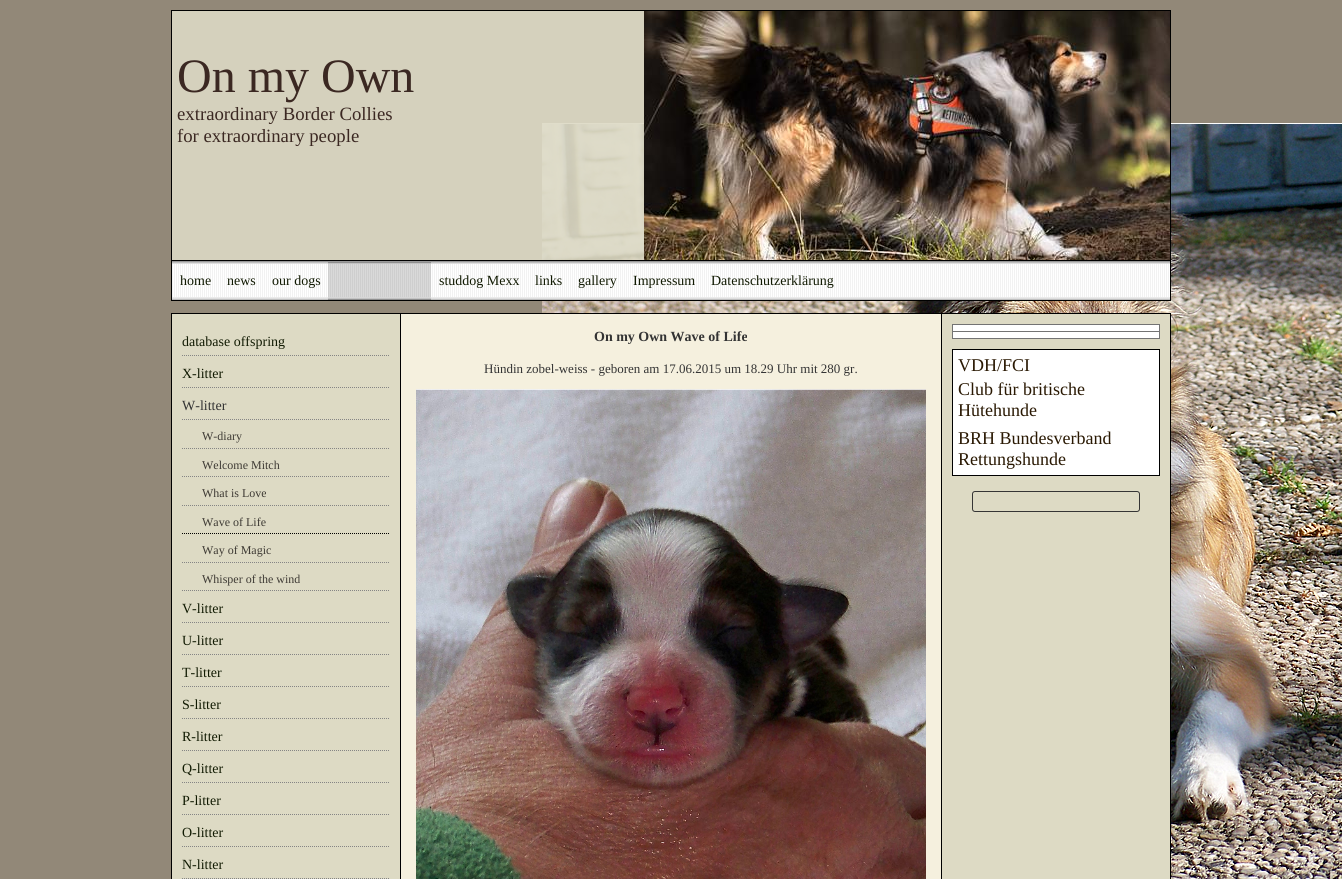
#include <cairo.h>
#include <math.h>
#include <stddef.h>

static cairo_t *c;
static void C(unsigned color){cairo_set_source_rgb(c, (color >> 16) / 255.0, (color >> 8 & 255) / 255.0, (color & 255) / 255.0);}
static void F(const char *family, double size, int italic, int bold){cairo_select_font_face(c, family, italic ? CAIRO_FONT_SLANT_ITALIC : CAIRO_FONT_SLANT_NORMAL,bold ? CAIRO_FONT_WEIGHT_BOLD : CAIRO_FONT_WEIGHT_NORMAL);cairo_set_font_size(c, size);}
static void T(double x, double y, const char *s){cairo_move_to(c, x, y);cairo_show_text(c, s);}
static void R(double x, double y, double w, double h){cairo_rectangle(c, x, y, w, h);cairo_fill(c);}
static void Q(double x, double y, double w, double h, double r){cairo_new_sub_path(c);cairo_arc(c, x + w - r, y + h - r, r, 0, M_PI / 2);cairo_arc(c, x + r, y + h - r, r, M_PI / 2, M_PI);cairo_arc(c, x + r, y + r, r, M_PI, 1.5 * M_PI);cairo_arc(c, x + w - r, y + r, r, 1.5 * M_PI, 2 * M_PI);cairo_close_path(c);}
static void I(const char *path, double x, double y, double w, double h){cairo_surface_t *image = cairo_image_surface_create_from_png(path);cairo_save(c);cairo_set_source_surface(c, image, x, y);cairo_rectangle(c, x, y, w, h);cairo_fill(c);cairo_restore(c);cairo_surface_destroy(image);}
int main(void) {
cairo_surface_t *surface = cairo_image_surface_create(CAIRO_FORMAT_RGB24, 1342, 879);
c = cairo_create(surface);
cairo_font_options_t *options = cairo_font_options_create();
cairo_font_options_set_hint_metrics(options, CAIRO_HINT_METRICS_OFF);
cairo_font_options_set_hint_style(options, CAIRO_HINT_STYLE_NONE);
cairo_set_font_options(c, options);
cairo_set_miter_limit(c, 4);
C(0x928878);
cairo_paint(c);
I("1.png",542,123,800,756);
cairo_set_source_rgba(c,0.867,0.855,0.769,0.9);
R(172,11,472,249);
I("2.png",644,11,526,249);
C(0x000000);
R(171,10,1000,1);
R(1170,10,1,250);
R(171,10,1,250);
F("Liberation Serif",48,0,0);
C(0x3b2822);
T(177,92,"On my Own");
F("Liberation Serif",18.75,0,0);
T(177,120,"extraordinary Border Collies");
T(177,142,"for extraordinary people");
C(0xffffff);
cairo_rectangle(c,171.5,260.5,999,40);
cairo_fill_preserve(c);
C(0x000000);
cairo_set_line_width(c,1);
cairo_stroke(c);
I("3.png",172,261,998,39);
F("Liberation Serif",14,0,0);
C(0x111a02);
T(180,285,"home");
T(227,285,"news");
T(272,285,"our dogs");
I("4.png",328,262,103,38);
T(439,285,"studdog Mexx");
T(535,285,"links");
T(578,285,"gallery");
T(633,285,"Impressum");
T(711,285,"Datenschutzerklärung");
C(0xdddac4);
cairo_rectangle(c,171.5,313.5,229,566);
cairo_fill_preserve(c);
C(0x000000);
cairo_stroke(c);
cairo_new_path(c);
cairo_move_to(c,182,355.5);
cairo_line_to(c,390,355.5);
C(0x858585);
cairo_set_dash(c,(double[]){1,1},2,0);
cairo_stroke(c);
C(0x111a02);
T(182,346,"database offspring");
cairo_new_path(c);
cairo_move_to(c,182,387.5);
cairo_line_to(c,390,387.5);
C(0x858585);
cairo_stroke(c);
C(0x111a02);
T(182,378,"X-litter");
cairo_new_path(c);
cairo_move_to(c,182,419.5);
cairo_line_to(c,390,419.5);
C(0x858585);
cairo_stroke(c);
C(0x333333);
T(182,410,"W-litter");
cairo_new_path(c);
cairo_move_to(c,182,448.5);
cairo_line_to(c,390,448.5);
C(0x858585);
cairo_stroke(c);
F("Liberation Serif",12,0,0);
C(0x3e3a34);
T(202,440,"W-diary");
cairo_new_path(c);
cairo_move_to(c,182,476.5);
cairo_line_to(c,390,476.5);
C(0x858585);
cairo_stroke(c);
C(0x3e3a34);
T(202,469,"Welcome Mitch");
cairo_new_path(c);
cairo_move_to(c,182,505.5);
cairo_line_to(c,390,505.5);
C(0x858585);
cairo_stroke(c);
C(0x3e3a34);
T(202,497,"What is Love");
cairo_new_path(c);
cairo_move_to(c,182,533.5);
cairo_line_to(c,390,533.5);
C(0x000000);
cairo_stroke(c);
C(0x3e3a34);
T(202,526,"Wave of Life");
cairo_new_path(c);
cairo_move_to(c,182,562.5);
cairo_line_to(c,390,562.5);
C(0x858585);
cairo_stroke(c);
C(0x3e3a34);
T(202,554,"Way of Magic");
cairo_new_path(c);
cairo_move_to(c,182,590.5);
cairo_line_to(c,390,590.5);
C(0x858585);
cairo_stroke(c);
C(0x3e3a34);
T(202,583,"Whisper of the wind");
cairo_new_path(c);
cairo_move_to(c,182,622.5);
cairo_line_to(c,390,622.5);
C(0x858585);
cairo_stroke(c);
F("Liberation Serif",14,0,0);
C(0x111a02);
T(182,613,"V-litter");
cairo_new_path(c);
cairo_move_to(c,182,654.5);
cairo_line_to(c,390,654.5);
C(0x858585);
cairo_stroke(c);
C(0x111a02);
T(182,645,"U-litter");
cairo_new_path(c);
cairo_move_to(c,182,686.5);
cairo_line_to(c,390,686.5);
C(0x858585);
cairo_stroke(c);
C(0x111a02);
T(182,677,"T-litter");
cairo_new_path(c);
cairo_move_to(c,182,718.5);
cairo_line_to(c,390,718.5);
C(0x858585);
cairo_stroke(c);
C(0x111a02);
T(182,709,"S-litter");
cairo_new_path(c);
cairo_move_to(c,182,750.5);
cairo_line_to(c,390,750.5);
C(0x858585);
cairo_stroke(c);
C(0x111a02);
T(182,741,"R-litter");
cairo_new_path(c);
cairo_move_to(c,182,782.5);
cairo_line_to(c,390,782.5);
C(0x858585);
cairo_stroke(c);
C(0x111a02);
T(182,773,"Q-litter");
cairo_new_path(c);
cairo_move_to(c,182,814.5);
cairo_line_to(c,390,814.5);
C(0x858585);
cairo_stroke(c);
C(0x111a02);
T(182,805,"P-litter");
cairo_new_path(c);
cairo_move_to(c,182,846.5);
cairo_line_to(c,390,846.5);
C(0x858585);
cairo_stroke(c);
C(0x111a02);
T(182,837,"O-litter");
cairo_new_path(c);
cairo_move_to(c,182,878.5);
cairo_line_to(c,390,878.5);
C(0x858585);
cairo_stroke(c);
C(0x111a02);
T(182,869,"N-litter");
C(0xf5f0de);
R(401,314,540,565);
C(0x000000);
R(401,313,540,1);
F("Liberation Serif",14,0,1);
C(0x333333);
T(594,341,"On my Own Wave of Life");
F("Liberation Serif",13,0,0);
T(484,373,"Hündin zobel-weiss - geboren am 17.06.2015 um 18.29 Uhr mit 280 gr.");
I("5.png",416,389,510,490);
C(0xdddac4);
cairo_rectangle(c,941.5,313.5,229,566);
cairo_fill_preserve(c);
C(0x000000);
cairo_set_dash(c,NULL,0,0);
cairo_stroke(c);
C(0xffffff);
cairo_rectangle(c,952.5,324.5,207,14);
cairo_fill_preserve(c);
C(0x737373);
cairo_stroke(c);
R(953,331,206,1);
C(0xffffff);
cairo_rectangle(c,952.5,349.5,207,126);
cairo_fill_preserve(c);
C(0x000000);
cairo_stroke(c);
F("Liberation Serif",18,0,0);
C(0x2a1903);
T(958,371,"VDH/FCI");
T(958,395,"Club für britische");
T(958,416,"Hütehunde");
T(958,444,"BRH Bundesverband");
T(958,465,"Rettungshunde");
Q(972.5,491.5,167,20,2.5);
C(0x353535);
cairo_stroke(c);
cairo_surface_write_to_png(surface, "o.png");
cairo_font_options_destroy(options);
cairo_destroy(c);
cairo_surface_destroy(surface);
return 0;
}
